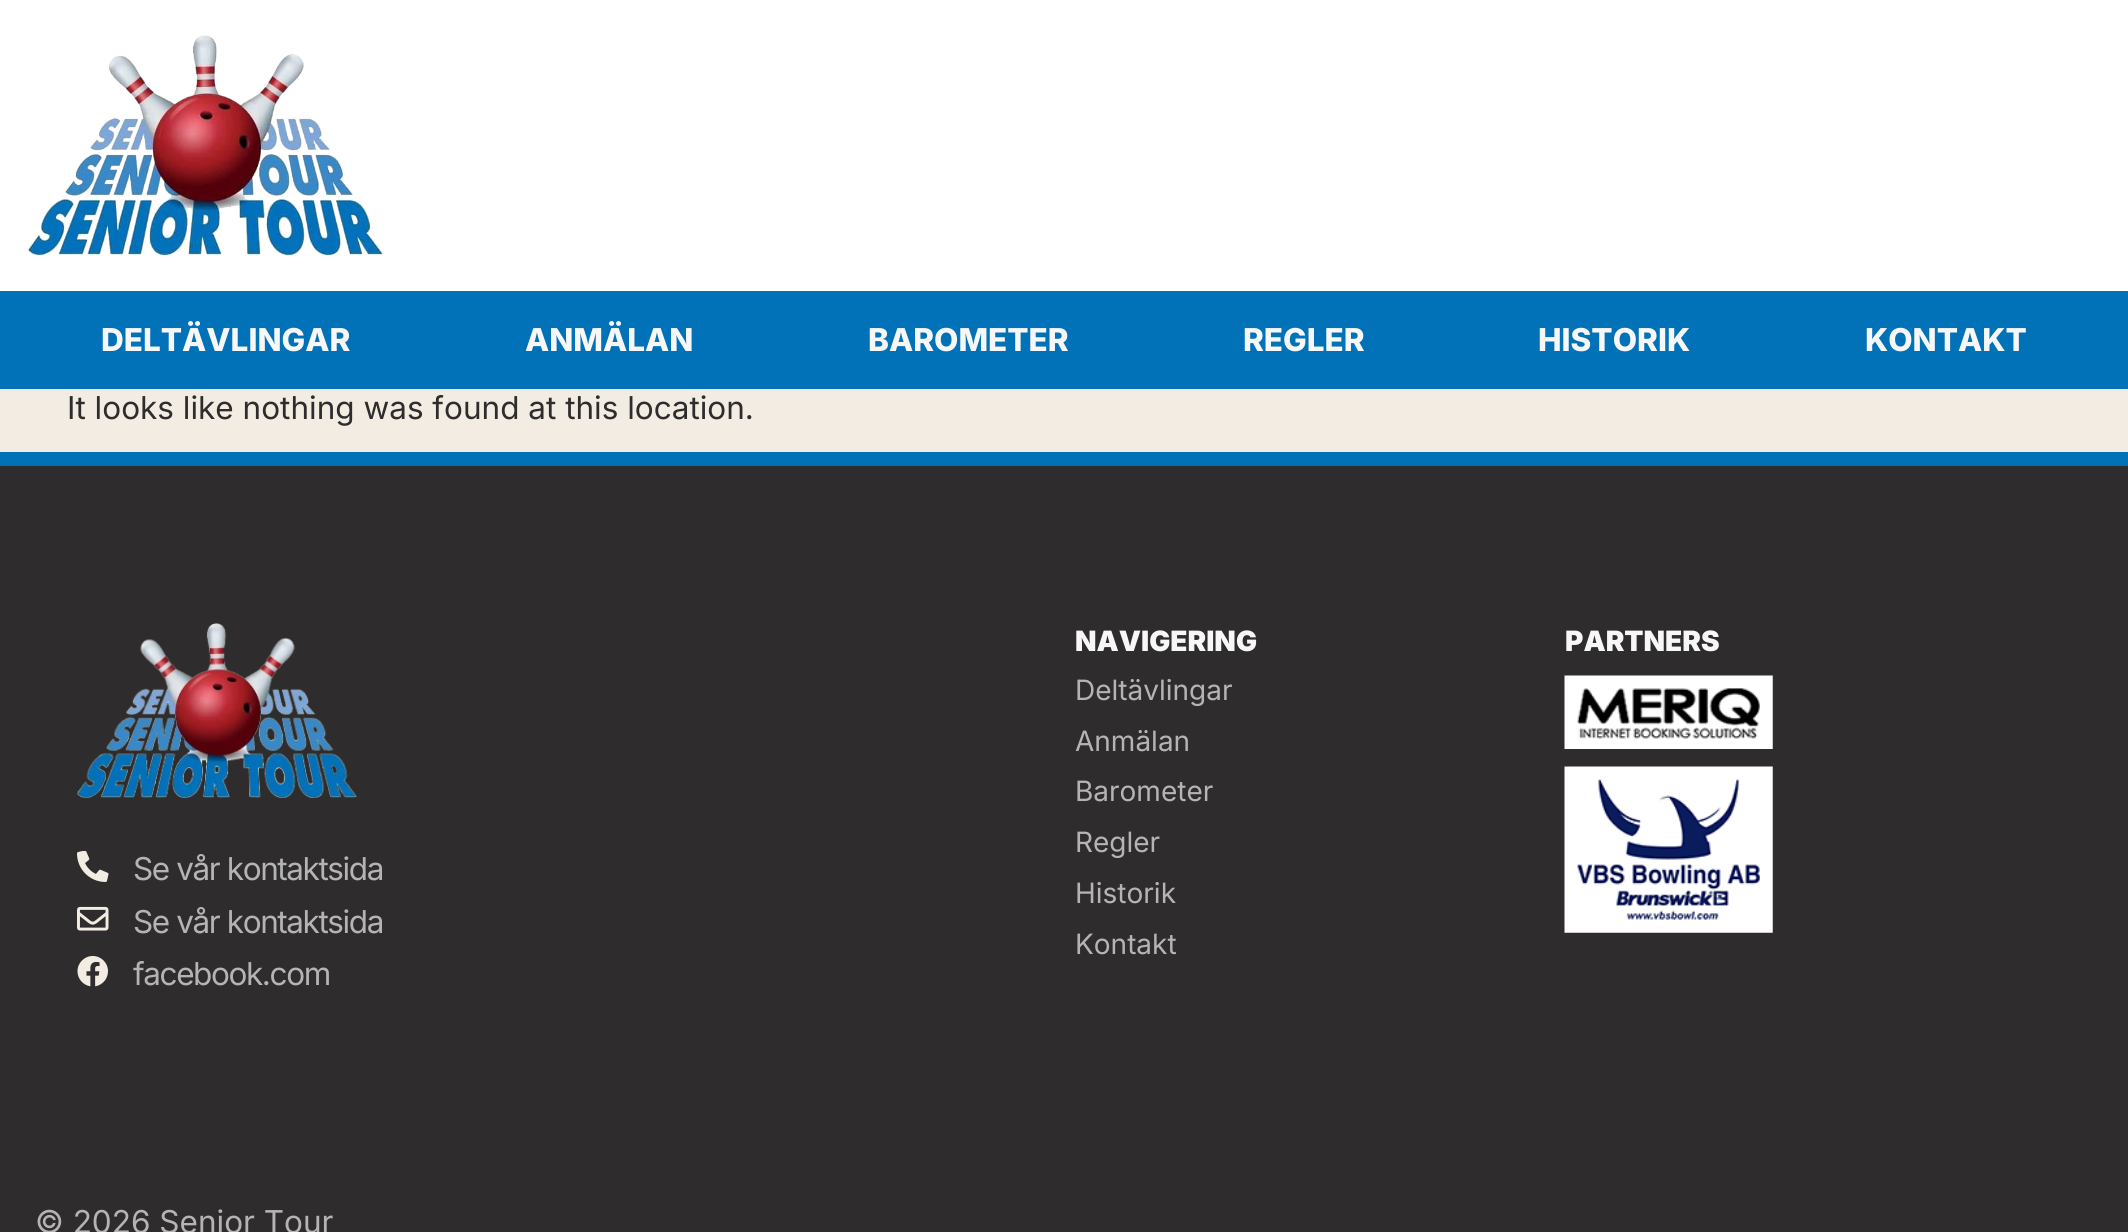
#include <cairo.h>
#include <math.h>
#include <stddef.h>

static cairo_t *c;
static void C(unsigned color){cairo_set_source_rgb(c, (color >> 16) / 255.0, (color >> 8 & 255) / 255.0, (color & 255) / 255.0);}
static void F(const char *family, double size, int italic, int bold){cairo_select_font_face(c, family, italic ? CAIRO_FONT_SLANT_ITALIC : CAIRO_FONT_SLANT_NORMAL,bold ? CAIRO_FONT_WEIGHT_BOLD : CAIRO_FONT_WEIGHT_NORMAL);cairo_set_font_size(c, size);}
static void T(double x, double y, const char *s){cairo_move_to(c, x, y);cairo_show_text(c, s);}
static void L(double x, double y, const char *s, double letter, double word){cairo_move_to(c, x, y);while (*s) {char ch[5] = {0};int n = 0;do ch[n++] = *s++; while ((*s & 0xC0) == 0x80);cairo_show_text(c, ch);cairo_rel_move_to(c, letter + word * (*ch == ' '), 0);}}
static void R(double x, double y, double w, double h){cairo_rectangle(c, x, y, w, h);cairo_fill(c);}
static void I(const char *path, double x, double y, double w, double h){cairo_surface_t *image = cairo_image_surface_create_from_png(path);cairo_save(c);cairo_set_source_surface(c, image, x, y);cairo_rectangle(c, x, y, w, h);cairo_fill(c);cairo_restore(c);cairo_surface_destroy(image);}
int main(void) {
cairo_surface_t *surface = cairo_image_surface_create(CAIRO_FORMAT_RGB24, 2128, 1232);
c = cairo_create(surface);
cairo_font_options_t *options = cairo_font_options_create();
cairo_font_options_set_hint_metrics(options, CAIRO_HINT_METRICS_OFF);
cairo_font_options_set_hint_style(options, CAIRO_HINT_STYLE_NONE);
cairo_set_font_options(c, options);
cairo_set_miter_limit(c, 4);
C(0xf3ece3);
cairo_paint(c);
C(0xffffff);
R(0,0,2128,291);
I("1.png",28,35,355,221);
C(0x0172b8);
R(0,291,2128,98);
F("Inter ExtraBold",31.5,0,0);
C(0xf7f7f7);
T(101,351,"DELTÄVLINGAR");
T(525,351,"ANMÄLAN");
T(868,351,"BAROMETER");
T(1243,351,"REGLER");
T(1538,351,"HISTORIK");
T(1865,351,"KONTAKT");
F("Inter",31.5,0,0);
C(0x2e2c2c);
T(67,419,"It looks like nothing was found at this location.");
R(0,466,2128,766);
C(0x0172b8);
R(0,452,2128,14);
F("Inter Black",28,0,0);
C(0xf7f7f7);
T(1075,651,"NAVIGERING");
F("Inter",28,0,0);
C(0xb5b4b4);
T(1075,700,"Deltävlingar");
T(1075,751,"Anmälan");
T(1075,801,"Barometer");
T(1075,852,"Regler");
T(1075,903,"Historik");
T(1075,954,"Kontakt");
F("Inter Black",28,0,0);
C(0xf7f7f7);
T(1565,651,"PARTNERS");
I("2.png",1564,675,209,74);
I("3.png",1564,766,209,167);
I("4.png",77,623,280,175);
I("5.png",77,851,32,31);
F("Inter",31.5,0,0);
C(0xb5b4b4);
L(133,880,"Se vår kontaktsida",-1.4,0);
I("6.png",77,906,32,25);
L(133,933,"Se vår kontaktsida",-1.4,0);
I("7.png",77,956,31,31);
L(133,985,"facebook.com",-1.4,0);
T(35,1233,"© 2026 Senior Tour");
cairo_surface_write_to_png(surface, "o.png");
cairo_font_options_destroy(options);
cairo_destroy(c);
cairo_surface_destroy(surface);
return 0;
}
